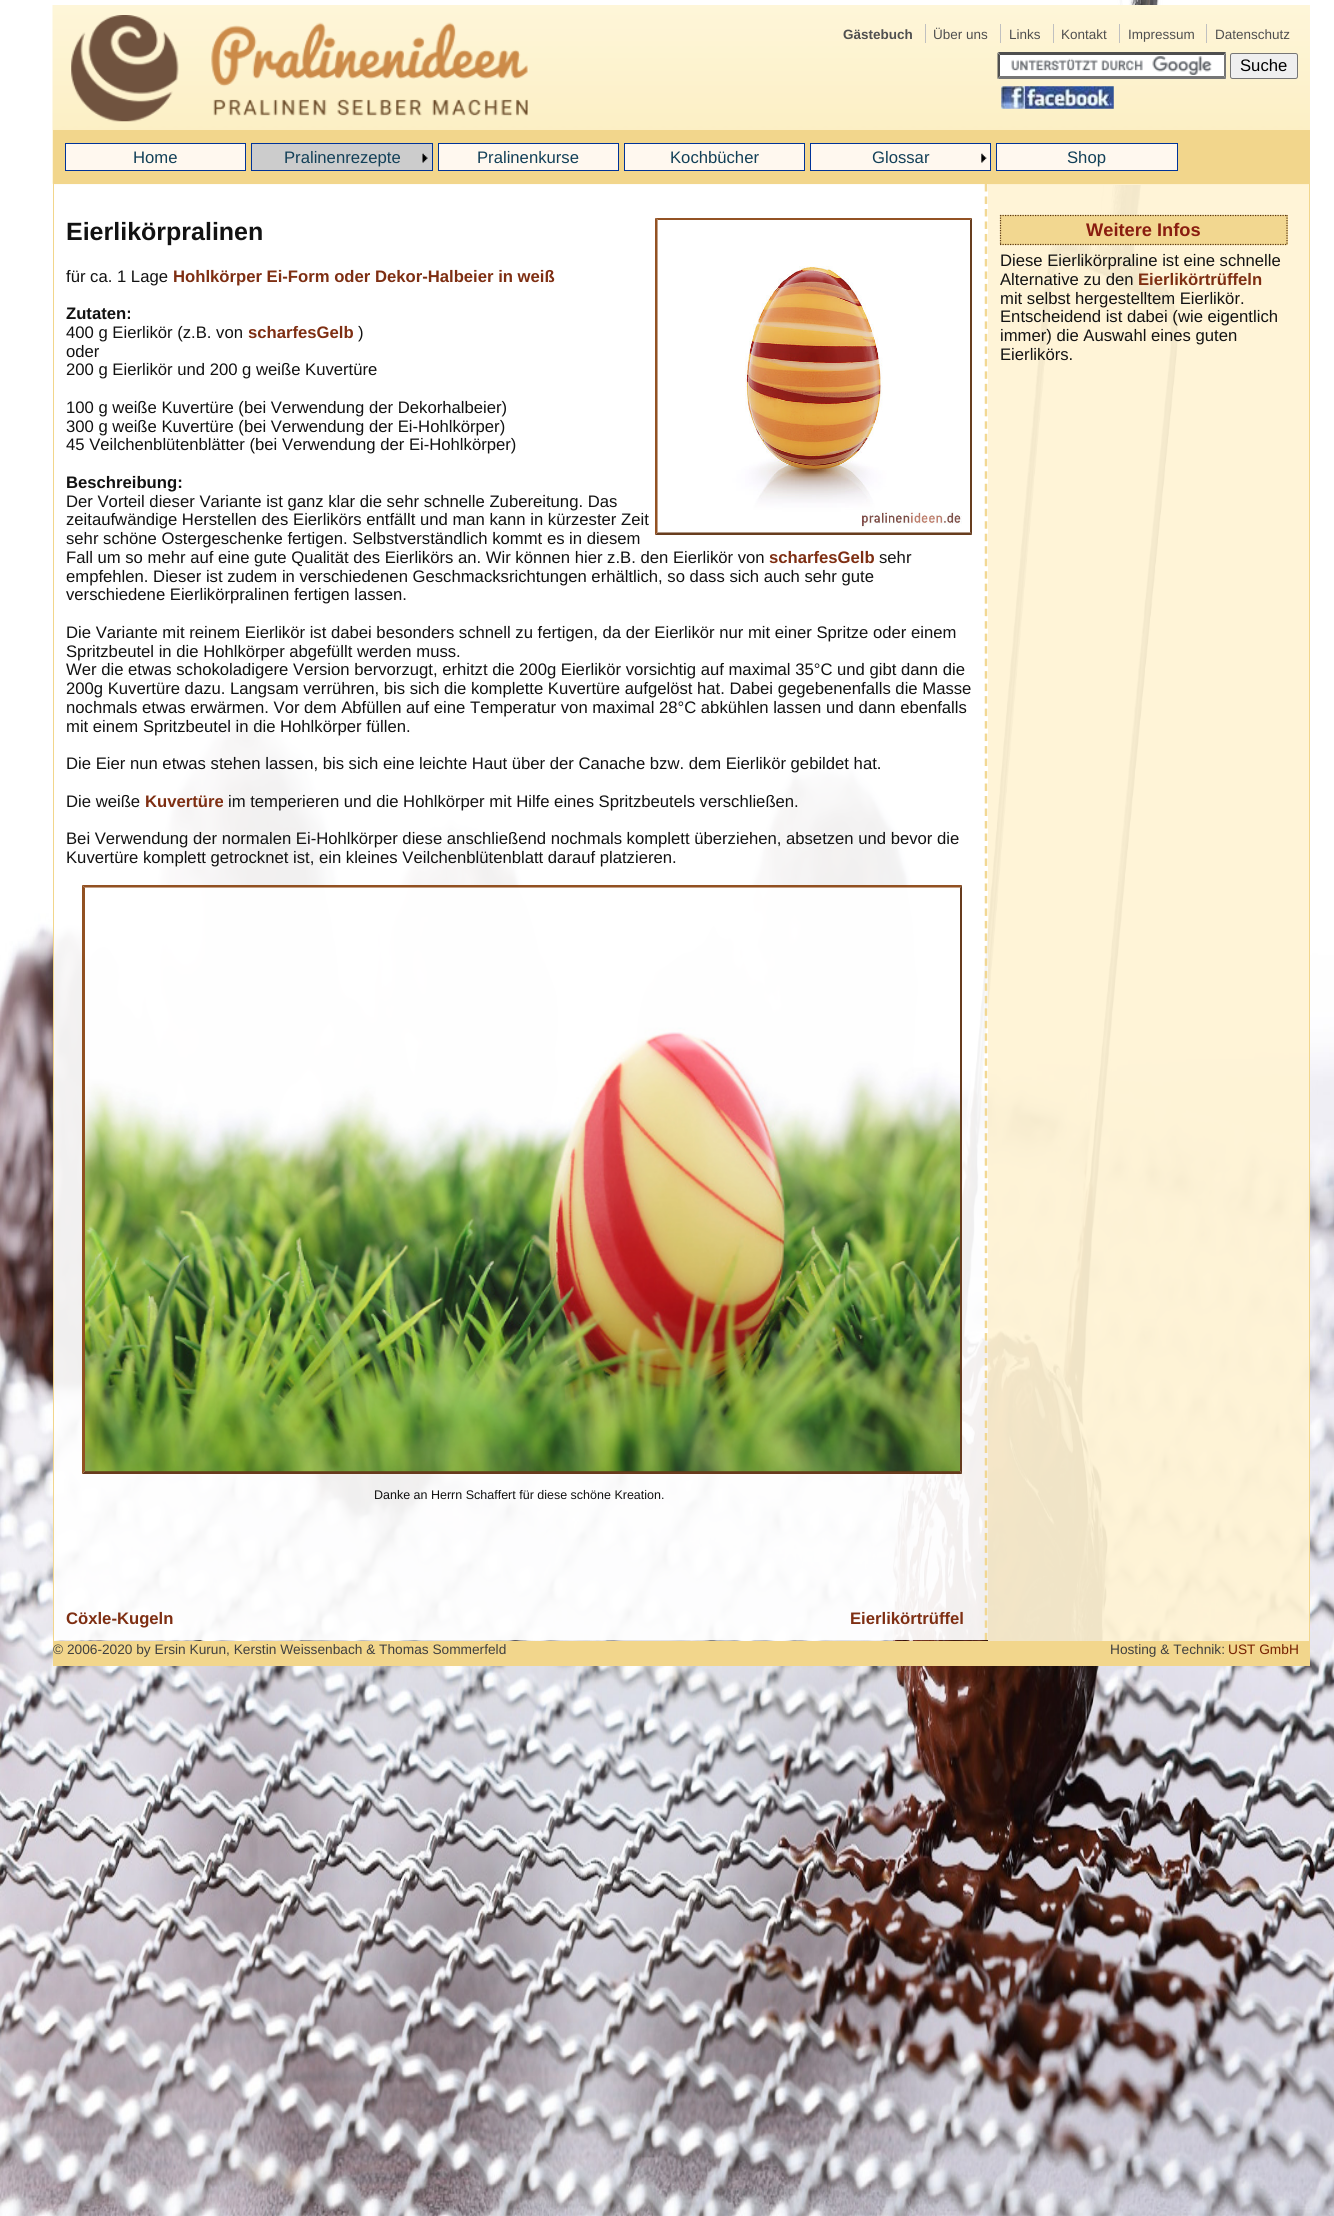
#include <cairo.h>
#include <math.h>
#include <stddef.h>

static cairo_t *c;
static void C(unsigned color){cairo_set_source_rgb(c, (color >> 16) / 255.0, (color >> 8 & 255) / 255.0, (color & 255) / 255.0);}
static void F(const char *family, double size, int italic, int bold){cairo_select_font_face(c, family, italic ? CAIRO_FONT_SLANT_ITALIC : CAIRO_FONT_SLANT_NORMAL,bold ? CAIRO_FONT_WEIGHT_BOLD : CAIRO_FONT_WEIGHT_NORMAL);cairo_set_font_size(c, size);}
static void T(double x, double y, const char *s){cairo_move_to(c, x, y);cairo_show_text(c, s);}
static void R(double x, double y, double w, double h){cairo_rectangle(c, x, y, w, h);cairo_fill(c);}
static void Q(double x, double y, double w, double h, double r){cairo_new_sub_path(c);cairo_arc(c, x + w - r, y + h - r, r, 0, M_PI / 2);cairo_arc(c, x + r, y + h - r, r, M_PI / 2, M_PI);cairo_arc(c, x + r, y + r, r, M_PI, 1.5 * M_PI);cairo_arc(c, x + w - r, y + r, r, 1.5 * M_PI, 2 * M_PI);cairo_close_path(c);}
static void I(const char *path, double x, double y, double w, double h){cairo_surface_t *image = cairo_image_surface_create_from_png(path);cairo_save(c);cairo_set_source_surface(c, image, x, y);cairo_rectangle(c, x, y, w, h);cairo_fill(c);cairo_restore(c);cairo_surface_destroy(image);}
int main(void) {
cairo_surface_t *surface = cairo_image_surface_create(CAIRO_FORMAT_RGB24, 1334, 2216);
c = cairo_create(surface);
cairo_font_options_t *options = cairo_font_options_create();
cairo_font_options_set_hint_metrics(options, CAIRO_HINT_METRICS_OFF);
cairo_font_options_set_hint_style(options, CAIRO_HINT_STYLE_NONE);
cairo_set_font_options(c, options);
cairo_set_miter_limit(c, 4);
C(0xffffff);
cairo_paint(c);
I("1.png",0,0,1334,2216);
I("2.png",52,5,1258,179);
I("3.png",71,15,457,107);
F("Liberation Sans",13.5,0,1);
C(0x4f4f4f);
T(843,39,"Gästebuch");
C(0xc0c0c0);
R(925,24,1,19);
F("Liberation Sans",13.5,0,0);
C(0x4f4f4f);
T(933,39,"Über uns");
C(0xc0c0c0);
R(1000,24,1,19);
C(0x4f4f4f);
T(1009,39,"Links");
C(0xc0c0c0);
R(1053,24,1,19);
C(0x4f4f4f);
T(1061,39,"Kontakt");
C(0xc0c0c0);
R(1119,24,1,19);
C(0x4f4f4f);
T(1128,39,"Impressum");
C(0xc0c0c0);
R(1206,24,1,19);
C(0x4f4f4f);
T(1215,39,"Datenschutz");
C(0xffffff);
R(998,53,228,26);
I("4.png",1011,56,201,19);
C(0x4f4f4f);
cairo_new_path(c);
cairo_move_to(c,998,52);
cairo_line_to(c,1226,52);
cairo_line_to(c,1224,55);
cairo_line_to(c,1000,55);
cairo_close_path(c);
cairo_fill(c);
C(0x767676);
cairo_new_path(c);
cairo_move_to(c,1226,52.5);
cairo_line_to(c,1226,79);
cairo_line_to(c,1224,76);
cairo_line_to(c,1224,55);
cairo_close_path(c);
cairo_fill(c);
cairo_new_path(c);
cairo_move_to(c,1226,79);
cairo_line_to(c,998,79);
cairo_line_to(c,1000,76);
cairo_line_to(c,1224,76);
cairo_close_path(c);
cairo_fill(c);
C(0x4f4f4f);
cairo_new_path(c);
cairo_move_to(c,997.5,79);
cairo_line_to(c,997.5,52.5);
cairo_line_to(c,1000,55);
cairo_line_to(c,1000,76);
cairo_close_path(c);
cairo_fill(c);
C(0xefefef);
Q(1230.5,53.5,67,25,2);
cairo_fill_preserve(c);
C(0x767676);
cairo_set_line_width(c,1);
cairo_stroke(c);
F("Liberation Sans",16.67,0,0);
C(0x000000);
T(1240,71,"Suche");
I("5.png",1001,86,113,23);
C(0xf2d68c);
R(1309,184,1,1457);
R(53,184,1,1457);
R(53,130,1257,55);
C(0xfff8ef);
cairo_rectangle(c,65.5,143.5,180,27);
cairo_fill_preserve(c);
C(0x003399);
cairo_stroke(c);
C(0x124058);
T(133,163,"Home");
C(0xcccccc);
R(252,144,180,26);
I("6.png",422,153,6,10);
cairo_rectangle(c,251.5,143.5,181,27);
C(0x003399);
cairo_stroke(c);
C(0x124058);
T(284,163,"Pralinenrezepte");
C(0xfff8ef);
cairo_rectangle(c,438.5,143.5,180,27);
cairo_fill_preserve(c);
C(0x003399);
cairo_stroke(c);
C(0x124058);
T(477,163,"Pralinenkurse");
C(0xfff8ef);
cairo_rectangle(c,624.5,143.5,180,27);
cairo_fill_preserve(c);
C(0x003399);
cairo_stroke(c);
C(0x124058);
T(670,163,"Kochbücher");
C(0xfff8ef);
R(811,144,179,26);
I("7.png",981,153,6,10);
cairo_rectangle(c,810.5,143.5,180,27);
C(0x003399);
cairo_stroke(c);
C(0x124058);
T(872,163,"Glossar");
C(0xfff8ef);
cairo_rectangle(c,996.5,143.5,181,27);
cairo_fill_preserve(c);
C(0x003399);
cairo_stroke(c);
C(0x124058);
T(1067,163,"Shop");
cairo_set_source_rgba(c,1,0.957,0.835,0.93);
R(988,184,321,1457);
cairo_set_source_rgba(c,1,1,1,0.93);
R(54,184,934,1456);
cairo_new_path(c);
cairo_move_to(c,986,184);
cairo_line_to(c,986,1640);
cairo_set_source_rgba(c,0.949,0.839,0.549,0.93);
cairo_set_line_width(c,2.5);
cairo_set_dash(c,(double[]){7.5,4.99},2,0);
cairo_stroke(c);
F("Liberation Sans",25,0,1);
C(0x121212);
T(66,240,"Eierlikörpralinen");
C(0x935224);
cairo_new_path(c);
cairo_move_to(c,655,218);
cairo_line_to(c,972,218);
cairo_line_to(c,970,220);
cairo_line_to(c,658,220);
cairo_close_path(c);
cairo_fill(c);
C(0x683d1e);
cairo_new_path(c);
cairo_move_to(c,972,218);
cairo_line_to(c,972,535);
cairo_line_to(c,970,532);
cairo_line_to(c,970,220);
cairo_close_path(c);
cairo_fill(c);
cairo_new_path(c);
cairo_move_to(c,972,535);
cairo_line_to(c,655,535);
cairo_line_to(c,658,532);
cairo_line_to(c,970,532);
cairo_close_path(c);
cairo_fill(c);
C(0x935224);
cairo_new_path(c);
cairo_move_to(c,655,535);
cairo_line_to(c,655,218);
cairo_line_to(c,658,220);
cairo_line_to(c,658,532);
cairo_close_path(c);
cairo_fill(c);
I("8.png",657,220,313,313);
F("Liberation Sans",16.67,0,0);
C(0x121212);
T(66,282,"für ca. 1 Lage");
F("Liberation Sans",16.67,0,1);
C(0x7e2e12);
T(173,282,"Hohlkörper Ei-Form oder Dekor-Halbeier in weiß");
C(0x121212);
T(66,319,"Zutaten:");
F("Liberation Sans",16.67,0,0);
T(66,338,"400 g Eierlikör (z.B. von");
F("Liberation Sans",16.67,0,1);
C(0x7e2e12);
T(248,338,"scharfesGelb");
F("Liberation Sans",16.67,0,0);
C(0x121212);
T(358,338,")");
T(66,357,"oder");
T(66,375,"200 g Eierlikör und 200 g weiße Kuvertüre");
T(66,413,"100 g weiße Kuvertüre (bei Verwendung der Dekorhalbeier)");
T(66,432,"300 g weiße Kuvertüre (bei Verwendung der Ei-Hohlkörper)");
T(66,450,"45 Veilchenblütenblätter (bei Verwendung der Ei-Hohlkörper)");
F("Liberation Sans",16.67,0,1);
T(66,488,"Beschreibung:");
F("Liberation Sans",16.67,0,0);
T(66,507,"Der Vorteil dieser Variante ist ganz klar die sehr schnelle Zubereitung. Das");
T(66,525,"zeitaufwändige Herstellen des Eierlikörs entfällt und man kann in kürzester Zeit");
T(66,544,"sehr schöne Ostergeschenke fertigen. Selbstverständlich kommt es in diesem");
T(66,563,"Fall um so mehr auf eine gute Qualität des Eierlikörs an. Wir können hier z.B. den Eierlikör von");
F("Liberation Sans",16.67,0,1);
C(0x7e2e12);
T(769,563,"scharfesGelb");
F("Liberation Sans",16.67,0,0);
C(0x121212);
T(879,563,"sehr");
T(66,582,"empfehlen. Dieser ist zudem in verschiedenen Geschmacksrichtungen erhältlich, so dass sich auch sehr gute");
T(66,600,"verschiedene Eierlikörpralinen fertigen lassen.");
T(66,638,"Die Variante mit reinem Eierlikör ist dabei besonders schnell zu fertigen, da der Eierlikör nur mit einer Spritze oder einem");
T(66,657,"Spritzbeutel in die Hohlkörper abgefüllt werden muss.");
T(66,675,"Wer die etwas schokoladigere Version bervorzugt, erhitzt die 200g Eierlikör vorsichtig auf maximal 35°C und gibt dann die");
T(66,694,"200g Kuvertüre dazu. Langsam verrühren, bis sich die komplette Kuvertüre aufgelöst hat. Dabei gegebenenfalls die Masse");
T(66,713,"nochmals etwas erwärmen. Vor dem Abfüllen auf eine Temperatur von maximal 28°C abkühlen lassen und dann ebenfalls");
T(66,732,"mit einem Spritzbeutel in die Hohlkörper füllen.");
T(66,769,"Die Eier nun etwas stehen lassen, bis sich eine leichte Haut über der Canache bzw. dem Eierlikör gebildet hat.");
T(66,807,"Die weiße");
F("Liberation Sans",16.67,0,1);
C(0x7e2e12);
T(145,807,"Kuvertüre");
F("Liberation Sans",16.67,0,0);
C(0x121212);
T(228,807,"im temperieren und die Hohlkörper mit Hilfe eines Spritzbeutels verschließen.");
T(66,844,"Bei Verwendung der normalen Ei-Hohlkörper diese anschließend nochmals komplett überziehen, absetzen und bevor die");
T(66,863,"Kuvertüre komplett getrocknet ist, ein kleines Veilchenblütenblatt darauf platzieren.");
cairo_set_source_rgba(c,0.545,0.271,0.075,0.93);
cairo_new_path(c);
cairo_move_to(c,82,885);
cairo_line_to(c,962,885);
cairo_line_to(c,960,888);
cairo_line_to(c,85,888);
cairo_close_path(c);
cairo_fill(c);
cairo_set_source_rgba(c,0.365,0.18,0.051,0.93);
cairo_new_path(c);
cairo_move_to(c,962,885);
cairo_line_to(c,962,1474);
cairo_line_to(c,960,1471);
cairo_line_to(c,960,888);
cairo_close_path(c);
cairo_fill(c);
cairo_new_path(c);
cairo_move_to(c,962,1474);
cairo_line_to(c,82,1474);
cairo_line_to(c,85,1471);
cairo_line_to(c,960,1471);
cairo_close_path(c);
cairo_fill(c);
cairo_set_source_rgba(c,0.545,0.271,0.075,0.93);
cairo_new_path(c);
cairo_move_to(c,82,1474);
cairo_line_to(c,82,885);
cairo_line_to(c,85,888);
cairo_line_to(c,85,1471);
cairo_close_path(c);
cairo_fill(c);
I("9.png",85,887,875,585);
F("Liberation Sans",12.5,0,0);
C(0x121212);
T(374,1499,"Danke an Herrn Schaffert für diese schöne Kreation.");
F("Liberation Sans",16.67,0,1);
C(0x7e2e12);
T(66,1624,"Cöxle-Kugeln");
T(850,1624,"Eierlikörtrüffel");
cairo_set_source_rgba(c,0.949,0.839,0.549,0.93);
R(1000,215,288,30);
cairo_new_path(c);
cairo_move_to(c,1000,215.5);
cairo_line_to(c,1287.5,215.5);
C(0x5a3611);
cairo_set_line_width(c,1.2);
cairo_set_dash(c,(double[]){1.25,1.25},2,0);
cairo_stroke(c);
cairo_new_path(c);
cairo_move_to(c,1287,215);
cairo_line_to(c,1287,245);
C(0x5a3918);
cairo_stroke(c);
cairo_new_path(c);
cairo_move_to(c,1000,244.5);
cairo_line_to(c,1287.5,244.5);
C(0x5a3611);
cairo_stroke(c);
cairo_new_path(c);
cairo_move_to(c,1000.5,215);
cairo_line_to(c,1000.5,245);
C(0x5a3918);
cairo_stroke(c);
F("Liberation Sans",18.25,0,1);
C(0x891d10);
T(1086,236,"Weitere Infos");
F("Liberation Sans",16.67,0,0);
C(0x121212);
T(1000,266,"Diese Eierlikörpraline ist eine schnelle");
T(1000,285,"Alternative zu den");
F("Liberation Sans",16.67,0,1);
C(0x7e2e12);
T(1138,285,"Eierlikörtrüffeln");
F("Liberation Sans",16.67,0,0);
C(0x121212);
T(1000,304,"mit selbst hergestelltem Eierlikör.");
T(1000,322,"Entscheidend ist dabei (wie eigentlich");
T(1000,341,"immer) die Auswahl eines guten");
T(1000,360,"Eierlikörs.");
C(0xf2d68c);
R(53,1641,1257,25);
F("Liberation Sans",13.7,0,0);
C(0x404040);
T(53,1654,"© 2006-2020 by Ersin Kurun, Kerstin Weissenbach & Thomas Sommerfeld");
T(1110,1654,"Hosting & Technik:");
C(0x751f00);
T(1228,1654,"UST GmbH");
cairo_surface_write_to_png(surface, "o.png");
cairo_font_options_destroy(options);
cairo_destroy(c);
cairo_surface_destroy(surface);
return 0;
}
